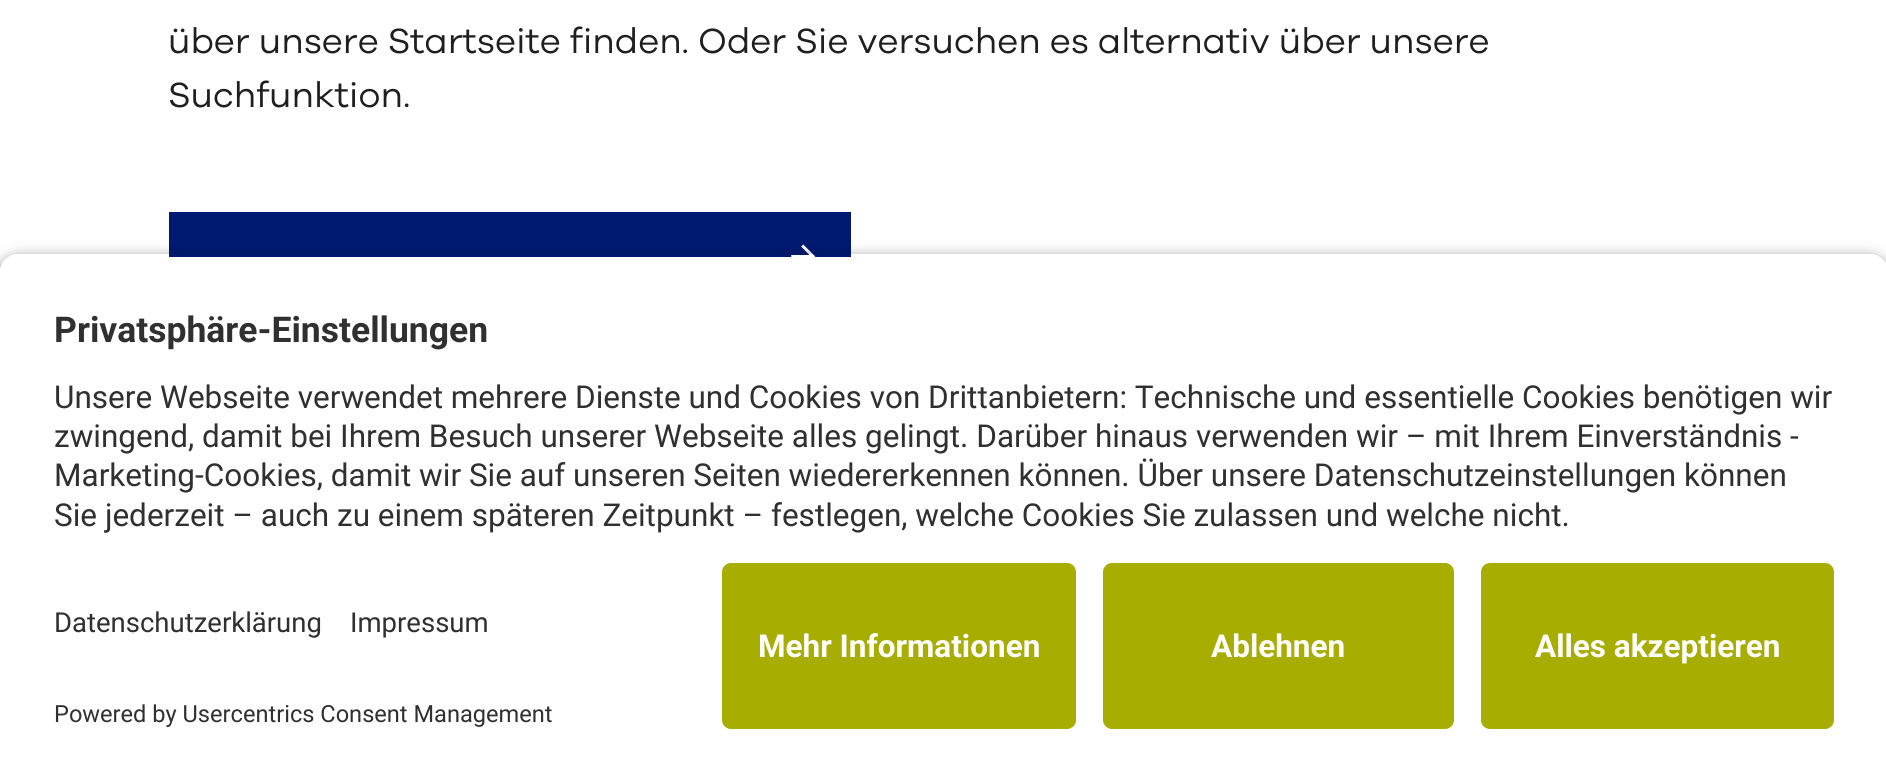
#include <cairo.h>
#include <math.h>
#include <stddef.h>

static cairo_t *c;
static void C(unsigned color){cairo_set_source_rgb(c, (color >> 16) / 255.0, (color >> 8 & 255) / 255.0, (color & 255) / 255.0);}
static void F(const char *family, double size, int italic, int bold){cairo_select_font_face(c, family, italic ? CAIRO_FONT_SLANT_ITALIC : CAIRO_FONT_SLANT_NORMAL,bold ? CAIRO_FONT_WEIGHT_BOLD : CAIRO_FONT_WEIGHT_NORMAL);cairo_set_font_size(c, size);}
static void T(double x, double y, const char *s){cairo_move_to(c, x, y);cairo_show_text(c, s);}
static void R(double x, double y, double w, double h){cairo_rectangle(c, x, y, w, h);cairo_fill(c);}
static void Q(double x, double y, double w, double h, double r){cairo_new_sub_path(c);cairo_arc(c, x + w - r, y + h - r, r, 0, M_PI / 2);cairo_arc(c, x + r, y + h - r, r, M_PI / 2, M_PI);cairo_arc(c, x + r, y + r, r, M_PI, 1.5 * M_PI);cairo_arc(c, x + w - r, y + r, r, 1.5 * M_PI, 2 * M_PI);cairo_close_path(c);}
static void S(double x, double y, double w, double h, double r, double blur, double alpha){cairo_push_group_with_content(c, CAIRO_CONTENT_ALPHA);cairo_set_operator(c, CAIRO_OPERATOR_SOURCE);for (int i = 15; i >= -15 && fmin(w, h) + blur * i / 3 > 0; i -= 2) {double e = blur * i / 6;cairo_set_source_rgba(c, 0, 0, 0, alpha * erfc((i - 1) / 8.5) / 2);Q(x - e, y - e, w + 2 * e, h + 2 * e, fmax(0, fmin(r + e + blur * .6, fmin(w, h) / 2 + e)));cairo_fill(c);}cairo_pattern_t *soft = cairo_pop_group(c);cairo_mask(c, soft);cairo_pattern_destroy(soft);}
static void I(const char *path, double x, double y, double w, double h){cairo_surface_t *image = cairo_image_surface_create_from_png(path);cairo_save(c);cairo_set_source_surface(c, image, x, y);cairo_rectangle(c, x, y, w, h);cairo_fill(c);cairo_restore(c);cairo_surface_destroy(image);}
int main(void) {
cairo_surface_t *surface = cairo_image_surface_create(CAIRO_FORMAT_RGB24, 1886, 782);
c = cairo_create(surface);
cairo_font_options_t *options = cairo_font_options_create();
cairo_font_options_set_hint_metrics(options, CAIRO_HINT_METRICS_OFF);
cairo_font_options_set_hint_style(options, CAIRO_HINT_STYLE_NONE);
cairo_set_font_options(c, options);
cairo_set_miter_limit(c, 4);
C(0xffffff);
cairo_paint(c);
F("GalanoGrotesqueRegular",36,0,0);
C(0x1f1f1f);
T(168,53,"über unsere Startseite finden. Oder Sie versuchen es alternativ über unsere");
T(168,107,"Suchfunktion.");
C(0x001a72);
R(169,212,682,45);
I("1.png",791,244,25,13);
cairo_save(c);
cairo_set_fill_rule(c,CAIRO_FILL_RULE_EVEN_ODD);
cairo_new_path(c);
cairo_move_to(c,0,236);
cairo_line_to(c,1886,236);
cairo_line_to(c,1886,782);
cairo_line_to(c,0,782);
cairo_close_path(c);
cairo_move_to(c,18,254);
cairo_line_to(c,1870,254);
cairo_curve_to(c,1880,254,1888,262,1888,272);
cairo_line_to(c,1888,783);
cairo_line_to(c,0,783);
cairo_line_to(c,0,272);
cairo_curve_to(c,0,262,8,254,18,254);
cairo_close_path(c);
cairo_clip(c);
C(0x000000);
S(0,261,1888,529,18,8,.8);
cairo_restore(c);
cairo_save(c);
cairo_new_path(c);
cairo_move_to(c,18,254);
cairo_line_to(c,1870,254);
cairo_curve_to(c,1880,254,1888,262,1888,272);
cairo_line_to(c,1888,545);
cairo_line_to(c,0,545);
cairo_line_to(c,0,272);
cairo_curve_to(c,0,262,8,254,18,254);
cairo_close_path(c);
cairo_clip(c);
C(0xffffff);
R(0,257,1886,288);
cairo_restore(c);
F("Roboto",35.5,0,1);
C(0x303030);
T(54,342,"Privatsphäre-Einstellungen");
F("Roboto",31.5,0,0);
T(54,408,"Unsere Webseite verwendet mehrere Dienste und Cookies von Drittanbietern: Technische und essentielle Cookies benötigen wir");
T(54,447,"zwingend, damit bei Ihrem Besuch unserer Webseite alles gelingt. Darüber hinaus verwenden wir – mit Ihrem Einverständnis -");
T(54,486,"Marketing-Cookies, damit wir Sie auf unseren Seiten wiedererkennen können. Über unsere Datenschutzeinstellungen können");
T(54,526,"Sie jederzeit – auch zu einem späteren Zeitpunkt – festlegen, welche Cookies Sie zulassen und welche nicht.");
F("Roboto",27.5,0,0);
T(54,632,"Datenschutzerklärung");
T(350,632,"Impressum");
F("Roboto",23.6,0,0);
T(54,722,"Powered by Usercentrics Consent Management");
C(0xa8ad01);
Q(722,563,354,166,9);
cairo_fill(c);
F("Roboto",31.5,0,1);
C(0xffffff);
T(758,657,"Mehr Informationen");
C(0xa8ad01);
Q(1103,563,351,166,9);
cairo_fill(c);
C(0xffffff);
T(1211,657,"Ablehnen");
C(0xa8ad01);
Q(1481,563,353,166,9);
cairo_fill(c);
C(0xffffff);
T(1535,657,"Alles akzeptieren");
cairo_surface_write_to_png(surface, "o.png");
cairo_font_options_destroy(options);
cairo_destroy(c);
cairo_surface_destroy(surface);
return 0;
}
